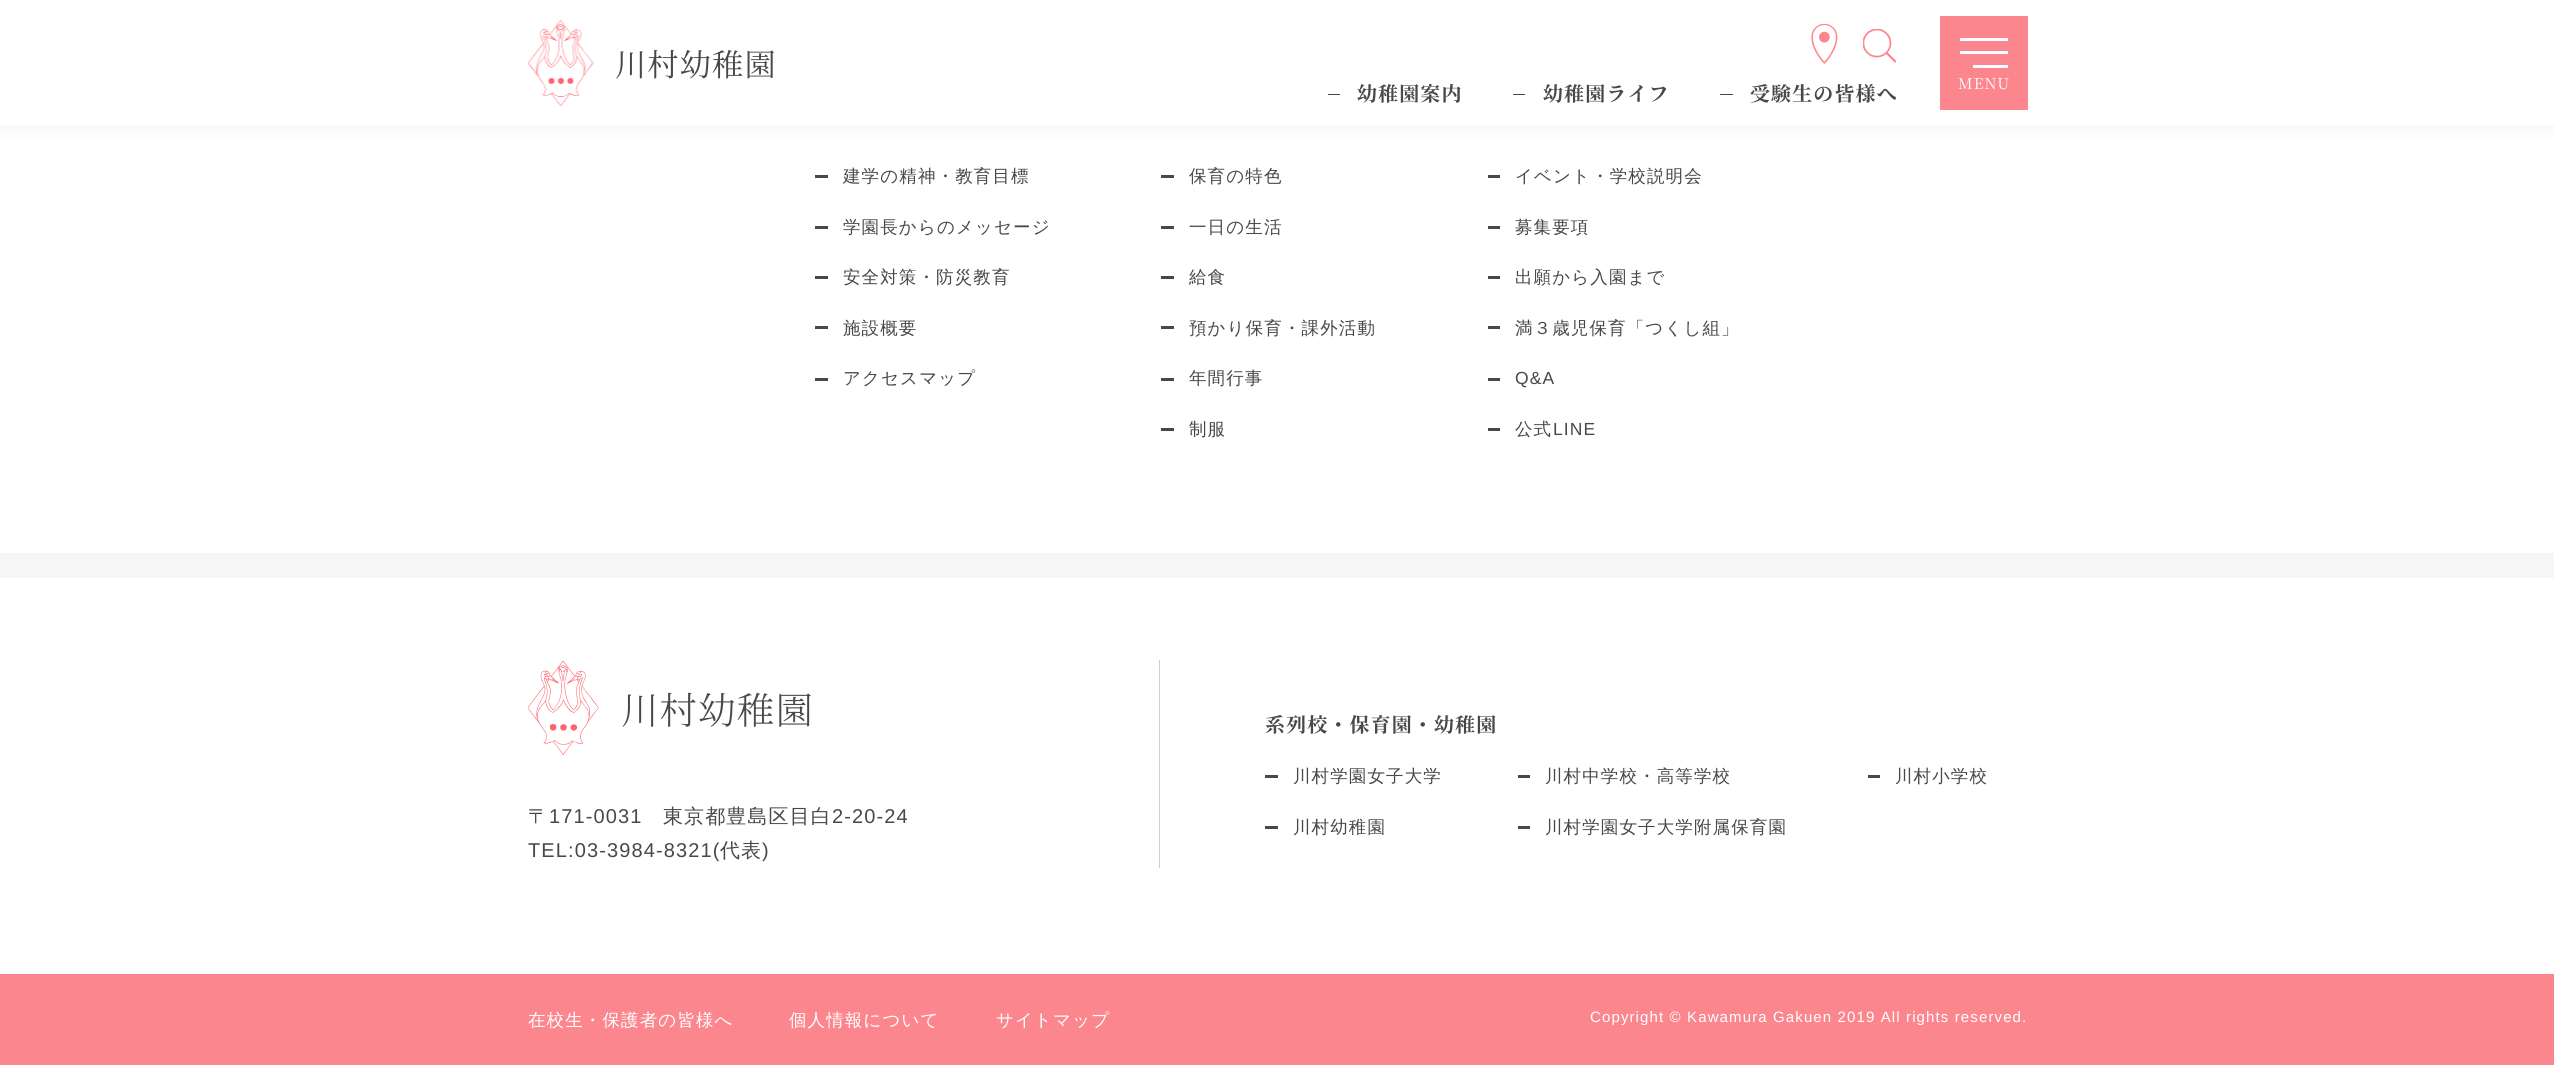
#include <cairo.h>
#include <math.h>
#include <stddef.h>

static cairo_t *c;
static void C(unsigned color){cairo_set_source_rgb(c, (color >> 16) / 255.0, (color >> 8 & 255) / 255.0, (color & 255) / 255.0);}
static void F(const char *family, double size, int italic, int bold){cairo_select_font_face(c, family, italic ? CAIRO_FONT_SLANT_ITALIC : CAIRO_FONT_SLANT_NORMAL,bold ? CAIRO_FONT_WEIGHT_BOLD : CAIRO_FONT_WEIGHT_NORMAL);cairo_set_font_size(c, size);}
static void L(double x, double y, const char *s, double letter, double word){cairo_move_to(c, x, y);while (*s) {char ch[5] = {0};int n = 0;do ch[n++] = *s++; while ((*s & 0xC0) == 0x80);cairo_show_text(c, ch);cairo_rel_move_to(c, letter + word * (*ch == ' '), 0);}}
static void R(double x, double y, double w, double h){cairo_rectangle(c, x, y, w, h);cairo_fill(c);}
static void Q(double x, double y, double w, double h, double r){cairo_new_sub_path(c);cairo_arc(c, x + w - r, y + h - r, r, 0, M_PI / 2);cairo_arc(c, x + r, y + h - r, r, M_PI / 2, M_PI);cairo_arc(c, x + r, y + r, r, M_PI, 1.5 * M_PI);cairo_arc(c, x + w - r, y + r, r, 1.5 * M_PI, 2 * M_PI);cairo_close_path(c);}
static void S(double x, double y, double w, double h, double r, double blur, double alpha){cairo_push_group_with_content(c, CAIRO_CONTENT_ALPHA);cairo_set_operator(c, CAIRO_OPERATOR_SOURCE);for (int i = 15; i >= -15 && fmin(w, h) + blur * i / 3 > 0; i -= 2) {double e = blur * i / 6;cairo_set_source_rgba(c, 0, 0, 0, alpha * erfc((i - 1) / 8.5) / 2);Q(x - e, y - e, w + 2 * e, h + 2 * e, fmax(0, fmin(r + e + blur * .6, fmin(w, h) / 2 + e)));cairo_fill(c);}cairo_pattern_t *soft = cairo_pop_group(c);cairo_mask(c, soft);cairo_pattern_destroy(soft);}
static void I(const char *path, double x, double y, double w, double h){cairo_surface_t *image = cairo_image_surface_create_from_png(path);cairo_save(c);cairo_set_source_surface(c, image, x, y);cairo_rectangle(c, x, y, w, h);cairo_fill(c);cairo_restore(c);cairo_surface_destroy(image);}
int main(void) {
cairo_surface_t *surface = cairo_image_surface_create(CAIRO_FORMAT_RGB24, 2554, 1065);
c = cairo_create(surface);
cairo_font_options_t *options = cairo_font_options_create();
cairo_font_options_set_hint_metrics(options, CAIRO_HINT_METRICS_OFF);
cairo_font_options_set_hint_style(options, CAIRO_HINT_STYLE_NONE);
cairo_set_font_options(c, options);
cairo_set_miter_limit(c, 4);
C(0xffffff);
cairo_paint(c);
C(0x000000);
S(0,4,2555,125,0,10,.04);
C(0xffffff);
R(0,0,2554,125);
I("1.png",527,20,67,86);
F("Noto Serif JP",31.25,0,0);
C(0x484848);
L(615,76,"川村幼稚園",1.12,0);
I("2.png",1811,24,27,40);
I("3.png",1863,29,33,34);
R(1328,94,12,1);
F("Noto Serif JP",20,0,1);
L(1357,101,"幼稚園案内",1.12,0);
R(1513,94,12,1);
L(1543,101,"幼稚園ライフ",1.12,0);
R(1720,94,13,1);
L(1750,101,"受験生の皆様へ",1.12,0);
C(0xfc868e);
R(1940,16,88,94);
C(0xffffff);
R(1960,38,48,3);
R(1960,51,48,3);
R(1973,65,35,3);
F("Noto Serif JP",15,0,0);
L(1958,89,"MENU",1,0);
C(0x484848);
R(815,175,13,3);
F("WenQuanYi Zen Hei Medium",17.5,0,0);
L(843,182,"建学の精神・教育目標",1.12,0);
R(815,226,13,3);
L(843,233,"学園長からのメッセージ",1.12,0);
R(815,276,13,3);
L(843,283,"安全対策・防災教育",1.12,0);
R(815,326,13,3);
L(843,334,"施設概要",1.12,0);
R(815,378,13,3);
L(843,384,"アクセスマップ",1.12,0);
R(1161,175,13,3);
L(1189,182,"保育の特色",1.12,0);
R(1161,226,13,3);
L(1189,233,"一日の生活",1.12,0);
R(1161,276,13,3);
L(1189,283,"給食",1.12,0);
R(1161,326,13,3);
L(1189,334,"預かり保育・課外活動",1.12,0);
R(1161,378,13,3);
L(1189,384,"年間行事",1.12,0);
R(1161,428,13,3);
L(1189,435,"制服",1.12,0);
R(1488,175,12,3);
L(1515,182,"イベント・学校説明会",1.12,0);
R(1488,226,12,3);
L(1515,233,"募集要項",1.12,0);
R(1488,276,12,3);
L(1515,283,"出願から入園まで",1.12,0);
R(1488,326,12,3);
L(1515,334,"満３歳児保育「つくし組」",1.12,0);
R(1488,378,12,3);
F("Liberation Sans",17.5,0,0);
L(1515,384,"Q&A",1.12,0);
R(1488,428,12,3);
F("WenQuanYi Zen Hei Medium",17.5,0,0);
L(1515,435,"公式",1.12,0);
F("Liberation Sans",17.5,0,0);
L(1553,435,"LINE",1.12,0);
C(0xf6f6f6);
R(0,553,2554,25);
I("4.png",528,660,71,95);
F("Noto Serif JP Light",37.5,0,0);
C(0x484848);
L(621,724,"川村幼稚園",1.12,0);
F("WenQuanYi Zen Hei Medium",20,0,0);
L(528,823,"〒",1.12,0);
F("Liberation Sans",20,0,0);
L(549,823,"171-0031",1.12,0);
F("WenQuanYi Zen Hei Medium",20,0,0);
L(663,823,"東京都豊島区目白",1.12,0);
F("Liberation Sans",20,0,0);
L(832,823,"2-20-24",1.12,0);
L(528,857,"TEL:03-3984-8321(",1.12,0);
F("WenQuanYi Zen Hei Medium",20,0,0);
L(720,857,"代表",1.12,0);
F("Liberation Sans",20,0,0);
L(762,857,")",1.12,0);
C(0xcfcfcf);
R(1159,660,1,208);
F("Noto Serif JP",20,0,1);
C(0x484848);
L(1265,732,"系列校・保育園・幼稚園",1.12,0);
R(1265,775,13,3);
F("WenQuanYi Zen Hei Medium",17.5,0,0);
L(1293,782,"川村学園女子大学",1.12,0);
R(1518,775,12,3);
L(1545,782,"川村中学校・高等学校",1.12,0);
R(1868,775,12,3);
L(1895,782,"川村小学校",1.12,0);
R(1265,826,13,3);
L(1293,833,"川村幼稚園",1.12,0);
R(1518,826,12,3);
L(1545,833,"川村学園女子大学附属保育園",1.12,0);
C(0xfc868e);
R(0,974,2554,91);
C(0xffffff);
L(528,1026,"在校生・保護者の皆様へ",1.12,0);
L(789,1026,"個人情報について",1.12,0);
L(996,1026,"サイトマップ",1.12,0);
F("Liberation Sans",15,0,0);
L(1590,1022,"Copyright © Kawamura Gakuen 2019 All rights reserved.",1.12,0);
cairo_surface_write_to_png(surface, "o.png");
cairo_font_options_destroy(options);
cairo_destroy(c);
cairo_surface_destroy(surface);
return 0;
}
